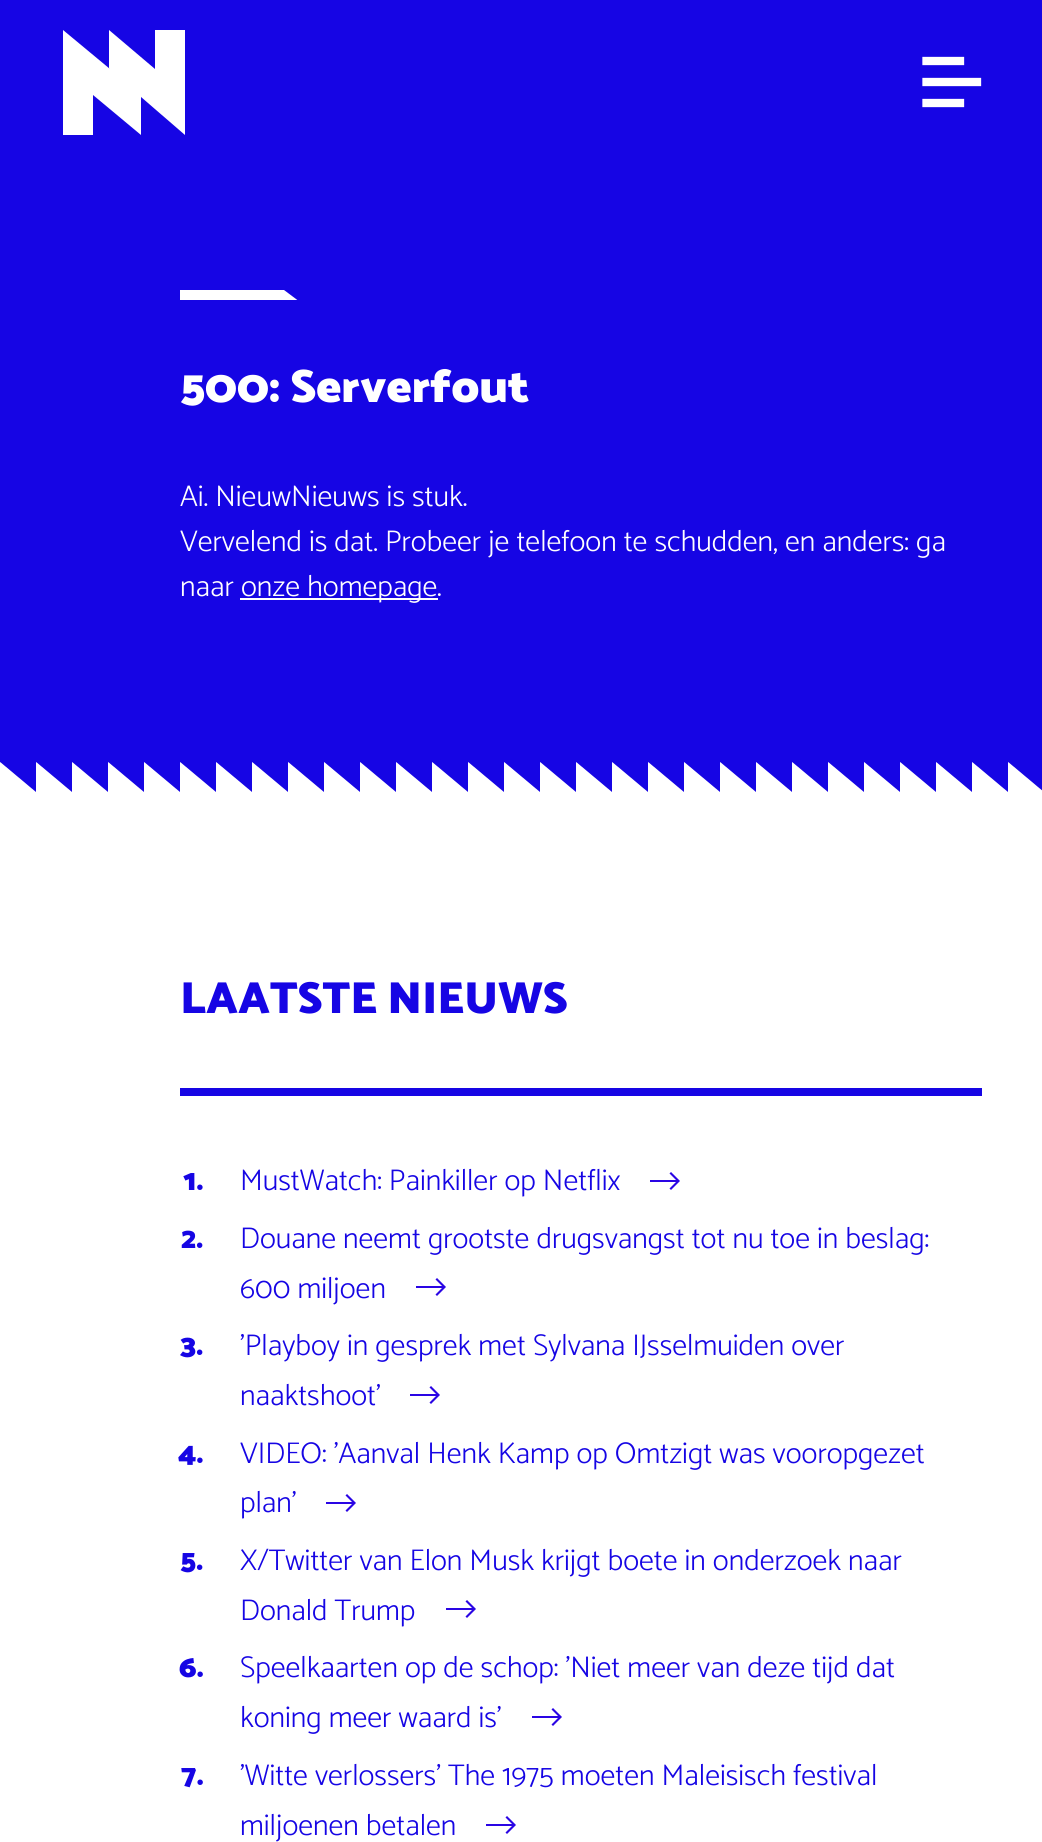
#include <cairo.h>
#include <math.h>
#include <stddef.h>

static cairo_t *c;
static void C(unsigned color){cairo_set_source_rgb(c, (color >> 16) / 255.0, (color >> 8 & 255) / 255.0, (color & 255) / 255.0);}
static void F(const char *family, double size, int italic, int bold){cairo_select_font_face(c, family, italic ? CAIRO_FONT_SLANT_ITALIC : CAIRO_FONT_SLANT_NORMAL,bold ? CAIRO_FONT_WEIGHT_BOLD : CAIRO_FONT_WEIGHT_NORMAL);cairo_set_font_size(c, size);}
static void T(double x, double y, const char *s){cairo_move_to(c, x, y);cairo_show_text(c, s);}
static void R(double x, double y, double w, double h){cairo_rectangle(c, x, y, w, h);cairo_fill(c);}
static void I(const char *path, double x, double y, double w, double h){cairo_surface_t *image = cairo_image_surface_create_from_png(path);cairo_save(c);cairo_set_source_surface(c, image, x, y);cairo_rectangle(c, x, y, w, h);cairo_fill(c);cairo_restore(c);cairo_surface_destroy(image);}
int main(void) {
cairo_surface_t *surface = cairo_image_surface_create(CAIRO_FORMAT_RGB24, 1042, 1842);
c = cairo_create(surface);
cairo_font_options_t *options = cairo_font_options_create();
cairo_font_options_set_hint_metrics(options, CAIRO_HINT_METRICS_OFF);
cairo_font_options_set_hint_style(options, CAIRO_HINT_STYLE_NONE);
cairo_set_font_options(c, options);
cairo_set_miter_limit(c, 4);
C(0xffffff);
cairo_paint(c);
C(0x1605e4);
R(0,0,1042,792);
C(0xffffff);
cairo_set_fill_rule(c,CAIRO_FILL_RULE_EVEN_ODD);
cairo_new_path(c);
cairo_move_to(c,185,30);
cairo_line_to(c,185,135);
cairo_line_to(c,141,97);
cairo_line_to(c,141,135);
cairo_line_to(c,93,95);
cairo_line_to(c,93,135);
cairo_line_to(c,63,135);
cairo_line_to(c,63,30);
cairo_line_to(c,110,69);
cairo_line_to(c,109,68);
cairo_line_to(c,109,30);
cairo_line_to(c,155,69);
cairo_line_to(c,155,30);
cairo_close_path(c);
cairo_fill(c);
cairo_new_path(c);
cairo_move_to(c,926.5,82);
cairo_line_to(c,977,82);
cairo_move_to(c,926.5,61);
cairo_line_to(c,960,61);
cairo_move_to(c,926.5,103);
cairo_line_to(c,960,103);
cairo_set_line_width(c,8.3);
cairo_set_line_cap(c,CAIRO_LINE_CAP_SQUARE);
cairo_stroke(c);
I("1.png",0,762,1042,30);
R(180,290,118,10);
C(0x1605e4);
cairo_set_fill_rule(c,CAIRO_FILL_RULE_WINDING);
cairo_new_path(c);
cairo_move_to(c,284,290);
cairo_line_to(c,296,274);
cairo_line_to(c,312,286);
cairo_line_to(c,300,302);
cairo_close_path(c);
cairo_fill(c);
F("Catamaran Black",47,0,0);
C(0xffffff);
T(180,402,"500: Serverfout");
F("Catamaran Light",30,0,0);
T(180,506,"Ai. NieuwNieuws is stuk.");
T(180,551,"Vervelend is dat. Probeer je telefoon te schudden, en anders: ga");
T(180,596,"naar");
R(240,598,198,2);
T(241,596,"onze homepage");
T(437,596,".");
C(0x1605e4);
R(180,1088,802,8);
F("Catamaran Black",45,0,0);
T(180,1013,"LAATSTE NIEUWS");
F("Catamaran Black",30,0,0);
T(183,1190,"1.");
F("Catamaran Light",30,0,0);
T(240,1190,"MustWatch: Painkiller op Netflix");
C(0x2a05e4);
cairo_new_path(c);
cairo_move_to(c,669.5,1173.5);
cairo_line_to(c,671,1172);
cairo_line_to(c,680,1181);
cairo_line_to(c,671,1190);
cairo_line_to(c,669.5,1188.5);
cairo_line_to(c,676,1182);
cairo_line_to(c,650,1182);
cairo_line_to(c,650,1180);
cairo_line_to(c,676,1180);
cairo_close_path(c);
cairo_fill(c);
F("Catamaran Black",30,0,0);
C(0x1605e4);
T(181,1248,"2.");
F("Catamaran Light",30,0,0);
T(240,1248,"Douane neemt grootste drugsvangst tot nu toe in beslag:");
T(240,1298,"600 miljoen");
C(0x2a05e4);
cairo_new_path(c);
cairo_move_to(c,435.5,1279.5);
cairo_line_to(c,437,1278);
cairo_line_to(c,446,1287);
cairo_line_to(c,437,1296);
cairo_line_to(c,435.5,1294.5);
cairo_line_to(c,442,1288);
cairo_line_to(c,416,1288);
cairo_line_to(c,416,1286);
cairo_line_to(c,442,1286);
cairo_close_path(c);
cairo_fill(c);
F("Catamaran Black",30,0,0);
C(0x1605e4);
T(180,1355,"3.");
F("Catamaran Light",30,0,0);
T(240,1355,"'Playboy in gesprek met Sylvana IJsselmuiden over");
T(240,1405,"naaktshoot'");
C(0x2a05e4);
cairo_new_path(c);
cairo_move_to(c,429.5,1387.5);
cairo_line_to(c,431,1386);
cairo_line_to(c,440,1395);
cairo_line_to(c,431,1404);
cairo_line_to(c,429.5,1402.5);
cairo_line_to(c,436,1396);
cairo_line_to(c,410,1396);
cairo_line_to(c,410,1394);
cairo_line_to(c,436,1394);
cairo_close_path(c);
cairo_fill(c);
F("Catamaran Black",30,0,0);
C(0x1605e4);
T(178,1463,"4.");
F("Catamaran Light",30,0,0);
T(240,1463,"VIDEO: 'Aanval Henk Kamp op Omtzigt was vooropgezet");
T(240,1512,"plan'");
C(0x2a05e4);
cairo_new_path(c);
cairo_move_to(c,345.5,1495.5);
cairo_line_to(c,347,1494);
cairo_line_to(c,356,1503);
cairo_line_to(c,347,1512);
cairo_line_to(c,345.5,1510.5);
cairo_line_to(c,352,1504);
cairo_line_to(c,326,1504);
cairo_line_to(c,326,1502);
cairo_line_to(c,352,1502);
cairo_close_path(c);
cairo_fill(c);
F("Catamaran Black",30,0,0);
C(0x1605e4);
T(180,1570,"5.");
F("Catamaran Light",30,0,0);
T(240,1570,"X/Twitter van Elon Musk krijgt boete in onderzoek naar");
T(240,1620,"Donald Trump");
C(0x2a05e4);
cairo_new_path(c);
cairo_move_to(c,465.5,1601.5);
cairo_line_to(c,467,1600);
cairo_line_to(c,476,1609);
cairo_line_to(c,467,1618);
cairo_line_to(c,465.5,1616.5);
cairo_line_to(c,472,1610);
cairo_line_to(c,446,1610);
cairo_line_to(c,446,1608);
cairo_line_to(c,472,1608);
cairo_close_path(c);
cairo_fill(c);
F("Catamaran Black",30,0,0);
C(0x1605e4);
T(179,1677,"6.");
F("Catamaran Light",30,0,0);
T(240,1677,"Speelkaarten op de schop: 'Niet meer van deze tijd dat");
T(240,1727,"koning meer waard is'");
C(0x2a05e4);
cairo_new_path(c);
cairo_move_to(c,551.5,1709.5);
cairo_line_to(c,553,1708);
cairo_line_to(c,562,1717);
cairo_line_to(c,553,1726);
cairo_line_to(c,551.5,1724.5);
cairo_line_to(c,558,1718);
cairo_line_to(c,532,1718);
cairo_line_to(c,532,1716);
cairo_line_to(c,558,1716);
cairo_close_path(c);
cairo_fill(c);
F("Catamaran Black",30,0,0);
C(0x1605e4);
T(181,1785,"7.");
F("Catamaran Light",30,0,0);
T(240,1785,"'Witte verlossers' The 1975 moeten Maleisisch festival");
T(240,1835,"miljoenen betalen");
C(0x2a05e4);
cairo_new_path(c);
cairo_move_to(c,505.5,1817.5);
cairo_line_to(c,507,1816);
cairo_line_to(c,516,1825);
cairo_line_to(c,507,1834);
cairo_line_to(c,505.5,1832.5);
cairo_line_to(c,512,1826);
cairo_line_to(c,486,1826);
cairo_line_to(c,486,1824);
cairo_line_to(c,512,1824);
cairo_close_path(c);
cairo_fill(c);
cairo_surface_write_to_png(surface, "o.png");
cairo_font_options_destroy(options);
cairo_destroy(c);
cairo_surface_destroy(surface);
return 0;
}
